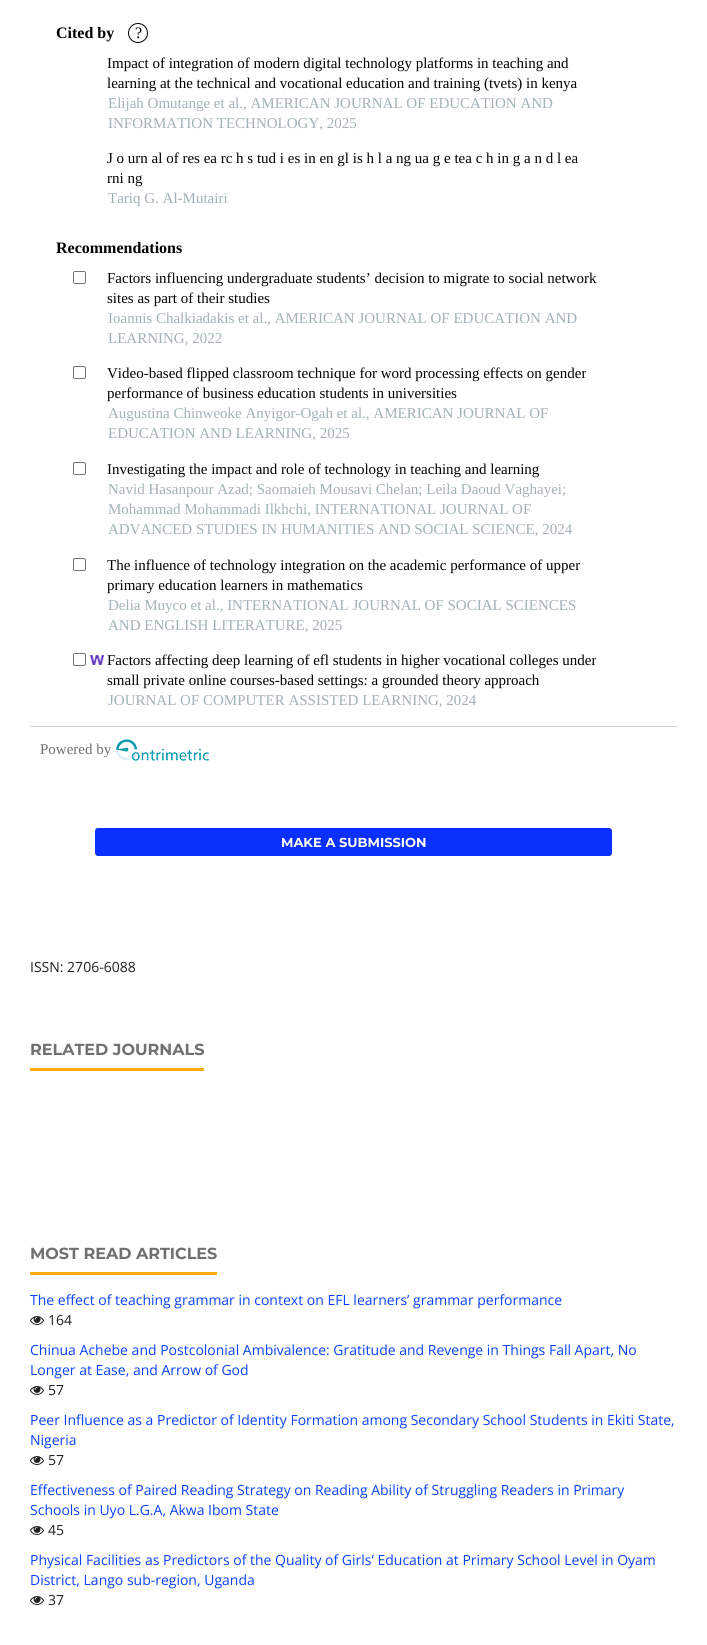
#include <cairo.h>
#include <math.h>
#include <stddef.h>

static cairo_t *c;
static void C(unsigned color){cairo_set_source_rgb(c, (color >> 16) / 255.0, (color >> 8 & 255) / 255.0, (color & 255) / 255.0);}
static void F(const char *family, double size, int italic, int bold){cairo_select_font_face(c, family, italic ? CAIRO_FONT_SLANT_ITALIC : CAIRO_FONT_SLANT_NORMAL,bold ? CAIRO_FONT_WEIGHT_BOLD : CAIRO_FONT_WEIGHT_NORMAL);cairo_set_font_size(c, size);}
static void T(double x, double y, const char *s){cairo_move_to(c, x, y);cairo_show_text(c, s);}
static void R(double x, double y, double w, double h){cairo_rectangle(c, x, y, w, h);cairo_fill(c);}
static void Q(double x, double y, double w, double h, double r){cairo_new_sub_path(c);cairo_arc(c, x + w - r, y + h - r, r, 0, M_PI / 2);cairo_arc(c, x + r, y + h - r, r, M_PI / 2, M_PI);cairo_arc(c, x + r, y + r, r, M_PI, 1.5 * M_PI);cairo_arc(c, x + w - r, y + r, r, 1.5 * M_PI, 2 * M_PI);cairo_close_path(c);}
static void I(const char *path, double x, double y, double w, double h){cairo_surface_t *image = cairo_image_surface_create_from_png(path);cairo_save(c);cairo_set_source_surface(c, image, x, y);cairo_rectangle(c, x, y, w, h);cairo_fill(c);cairo_restore(c);cairo_surface_destroy(image);}
int main(void) {
cairo_surface_t *surface = cairo_image_surface_create(CAIRO_FORMAT_RGB24, 707, 1645);
c = cairo_create(surface);
cairo_font_options_t *options = cairo_font_options_create();
cairo_font_options_set_hint_metrics(options, CAIRO_HINT_METRICS_OFF);
cairo_font_options_set_hint_style(options, CAIRO_HINT_STYLE_NONE);
cairo_set_font_options(c, options);
cairo_set_miter_limit(c, 4);
C(0xffffff);
cairo_paint(c);
F("Liberation Serif",16,0,1);
C(0x000000);
T(56,38,"Cited by");
cairo_new_path(c);
cairo_arc(c,138,33,9.5,0,2 * M_PI);
cairo_set_line_width(c,1);
cairo_stroke(c);
F("Liberation Serif",16,0,0);
T(135,38,"?");
F("Liberation Serif",15,0,0);
T(107,68,"Impact of integration of modern digital technology platforms in teaching and");
T(107,88,"learning at the technical and vocational education and training (tvets) in kenya");
C(0xa2b1b6);
T(108,108,"Elijah Omutange et al., AMERICAN JOURNAL OF EDUCATION AND");
T(108,128,"INFORMATION TECHNOLOGY, 2025");
C(0x000000);
T(107,163,"J o urn al of res ea rc h s tud i es in en gl is h l a ng ua g e tea c h in g a n d l ea");
T(107,183,"rni ng");
C(0xa2b1b6);
T(108,203,"Tariq G. Al-Mutairi");
F("Liberation Serif",16,0,1);
C(0x000000);
T(56,253,"Recommendations");
Q(73.5,271.5,12,12,1.5);
C(0x767676);
cairo_stroke(c);
F("Liberation Serif",15,0,0);
C(0x000000);
T(107,283,"Factors influencing undergraduate students’ decision to migrate to social network");
T(107,303,"sites as part of their studies");
C(0xa2b1b6);
T(108,323,"Ioannis Chalkiadakis et al., AMERICAN JOURNAL OF EDUCATION AND");
T(108,343,"LEARNING, 2022");
Q(73.5,366.5,12,12,1.5);
C(0x767676);
cairo_stroke(c);
C(0x000000);
T(107,378,"Video-based flipped classroom technique for word processing effects on gender");
T(107,398,"performance of business education students in universities");
C(0xa2b1b6);
T(108,418,"Augustina Chinweoke Anyigor-Ogah et al., AMERICAN JOURNAL OF");
T(108,438,"EDUCATION AND LEARNING, 2025");
Q(73.5,462.5,12,12,1.5);
C(0x767676);
cairo_stroke(c);
C(0x000000);
T(107,474,"Investigating the impact and role of technology in teaching and learning");
C(0xa2b1b6);
T(108,494,"Navid Hasanpour Azad; Saomaieh Mousavi Chelan; Leila Daoud Vaghayei;");
T(108,514,"Mohammad Mohammadi Ilkhchi, INTERNATIONAL JOURNAL OF");
T(108,534,"ADVANCED STUDIES IN HUMANITIES AND SOCIAL SCIENCE, 2024");
Q(73.5,558.5,12,12,1.5);
C(0x767676);
cairo_stroke(c);
C(0x000000);
T(107,570,"The influence of technology integration on the academic performance of upper");
T(107,590,"primary education learners in mathematics");
C(0xa2b1b6);
T(108,610,"Delia Muyco et al., INTERNATIONAL JOURNAL OF SOCIAL SCIENCES");
T(108,630,"AND ENGLISH LITERATURE, 2025");
Q(73.5,653.5,12,12,1.5);
C(0x767676);
cairo_stroke(c);
I("1.png",90,655,14,10);
C(0x000000);
T(107,665,"Factors affecting deep learning of efl students in higher vocational colleges under");
T(107,685,"small private online courses-based settings: a grounded theory approach");
C(0xa2b1b6);
T(108,705,"JOURNAL OF COMPUTER ASSISTED LEARNING, 2024");
C(0xd4d4d6);
R(30,726,647,1);
C(0x707070);
T(40,754,"Powered by");
I("2.png",116,739,93,22);
C(0x0930ff);
Q(95,828,517,28,3);
cairo_fill(c);
F("Montserrat",13,0,1);
C(0xffffff);
T(281,847,"MAKE A SUBMISSION");
F("Open Sans",14,0,0);
C(0x212121);
T(30,972,"ISSN: 2706-6088");
C(0xffac0b);
R(30,1068,174,3);
F("Montserrat",16,0,1);
C(0x707070);
T(30,1055,"RELATED JOURNALS");
C(0xffac0b);
R(30,1272,187,3);
C(0x707070);
T(30,1259,"MOST READ ARTICLES");
F("Open Sans",14,0,0);
C(0x0a42ff);
T(30,1305,"The effect of teaching grammar in context on EFL learners’ grammar performance");
I("3.png",30,1316,14,9);
C(0x212121);
T(48,1325,"164");
C(0x0a42ff);
T(30,1355,"Chinua Achebe and Postcolonial Ambivalence: Gratitude and Revenge in Things Fall Apart, No");
T(30,1375,"Longer at Ease, and Arrow of God");
I("3.png",30,1386,14,9);
C(0x212121);
T(48,1395,"57");
C(0x0a42ff);
T(30,1425,"Peer Influence as a Predictor of Identity Formation among Secondary School Students in Ekiti State,");
T(30,1445,"Nigeria");
I("3.png",30,1456,14,9);
C(0x212121);
T(48,1465,"57");
C(0x0a42ff);
T(30,1495,"Effectiveness of Paired Reading Strategy on Reading Ability of Struggling Readers in Primary");
T(30,1515,"Schools in Uyo L.G.A, Akwa Ibom State");
I("3.png",30,1526,14,9);
C(0x212121);
T(48,1535,"45");
C(0x0a42ff);
T(30,1565,"Physical Facilities as Predictors of the Quality of Girls’ Education at Primary School Level in Oyam");
T(30,1585,"District, Lango sub-region, Uganda");
I("3.png",30,1596,14,9);
C(0x212121);
T(48,1605,"37");
cairo_surface_write_to_png(surface, "o.png");
cairo_font_options_destroy(options);
cairo_destroy(c);
cairo_surface_destroy(surface);
return 0;
}
